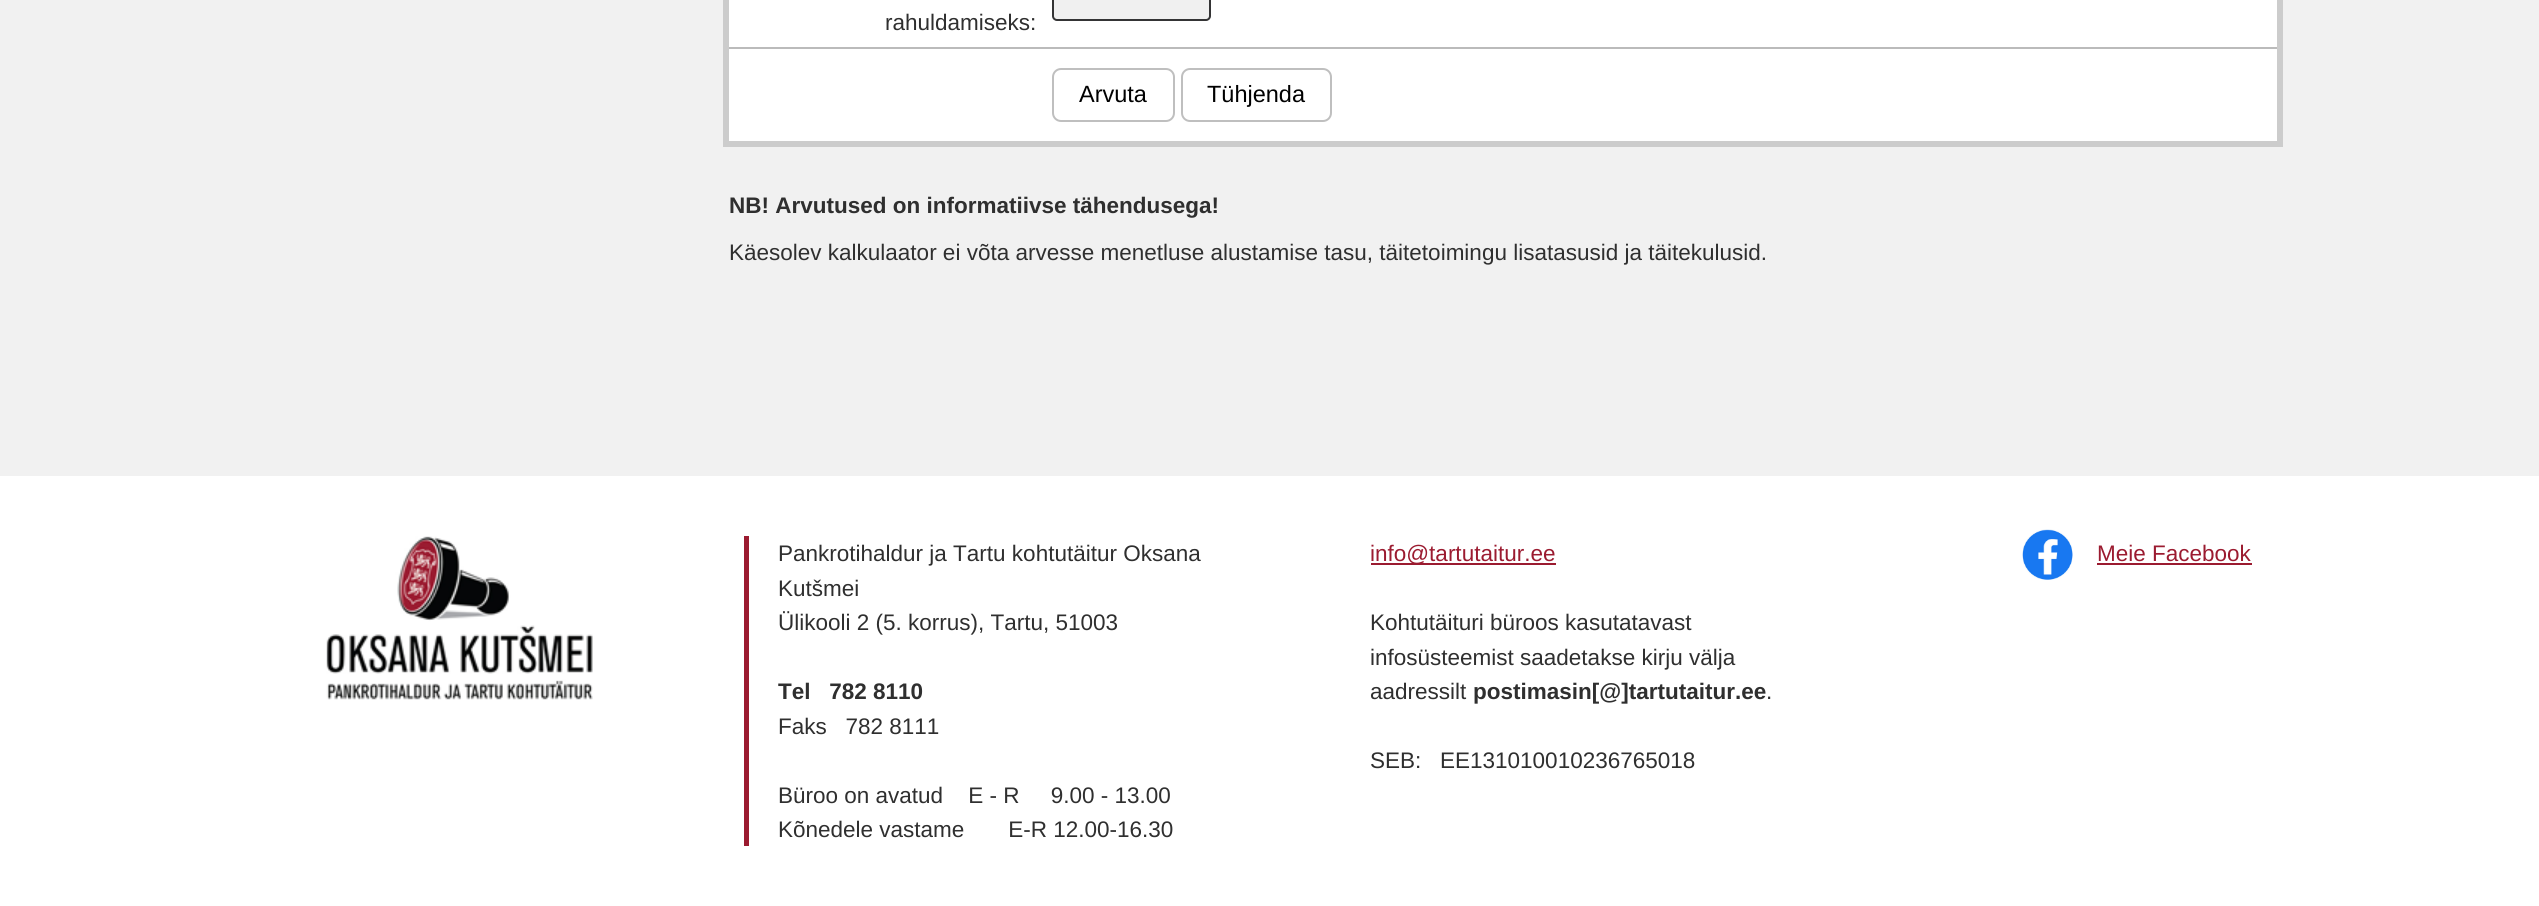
#include <cairo.h>
#include <math.h>
#include <stddef.h>

static cairo_t *c;
static void C(unsigned color){cairo_set_source_rgb(c, (color >> 16) / 255.0, (color >> 8 & 255) / 255.0, (color & 255) / 255.0);}
static void F(const char *family, double size, int italic, int bold){cairo_select_font_face(c, family, italic ? CAIRO_FONT_SLANT_ITALIC : CAIRO_FONT_SLANT_NORMAL,bold ? CAIRO_FONT_WEIGHT_BOLD : CAIRO_FONT_WEIGHT_NORMAL);cairo_set_font_size(c, size);}
static void T(double x, double y, const char *s){cairo_move_to(c, x, y);cairo_show_text(c, s);}
static void R(double x, double y, double w, double h){cairo_rectangle(c, x, y, w, h);cairo_fill(c);}
static void Q(double x, double y, double w, double h, double r){cairo_new_sub_path(c);cairo_arc(c, x + w - r, y + h - r, r, 0, M_PI / 2);cairo_arc(c, x + r, y + h - r, r, M_PI / 2, M_PI);cairo_arc(c, x + r, y + r, r, M_PI, 1.5 * M_PI);cairo_arc(c, x + w - r, y + r, r, 1.5 * M_PI, 2 * M_PI);cairo_close_path(c);}
static void I(const char *path, double x, double y, double w, double h){cairo_surface_t *image = cairo_image_surface_create_from_png(path);cairo_save(c);cairo_set_source_surface(c, image, x, y);cairo_rectangle(c, x, y, w, h);cairo_fill(c);cairo_restore(c);cairo_surface_destroy(image);}
int main(void) {
cairo_surface_t *surface = cairo_image_surface_create(CAIRO_FORMAT_RGB24, 2539, 906);
c = cairo_create(surface);
cairo_font_options_t *options = cairo_font_options_create();
cairo_font_options_set_hint_metrics(options, CAIRO_HINT_METRICS_OFF);
cairo_font_options_set_hint_style(options, CAIRO_HINT_STYLE_NONE);
cairo_set_font_options(c, options);
cairo_set_miter_limit(c, 4);
C(0xffffff);
cairo_paint(c);
C(0xf1f1f1);
R(0,0,2539,476);
C(0xcccccc);
R(723,0,1560,147);
C(0xffffff);
R(729,0,1548,141);
F("Liberation Sans",22.5,0,0);
C(0x2f2f2f);
T(885,30,"rahuldamiseks:");
C(0xf0f0f0);
Q(1053,-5,157,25,4);
cairo_fill_preserve(c);
C(0x343435);
cairo_stroke(c);
C(0xbbbbbb);
R(729,47,1548,2);
Q(1053,69,121,52,8);
C(0xbfbfbf);
cairo_stroke(c);
F("Liberation Sans",23.5,0,0);
C(0x000000);
T(1079,102,"Arvuta");
Q(1182,69,149,52,8);
C(0xbfbfbf);
cairo_stroke(c);
C(0x000000);
T(1207,102,"Tühjenda");
F("Liberation Sans",22.5,0,1);
C(0x2f2f2f);
T(729,213,"NB! Arvutused on informatiivse tähendusega!");
F("Liberation Sans",22.5,0,0);
T(729,260,"Käesolev kalkulaator ei võta arvesse menetluse alustamise tasu, täitetoimingu lisatasusid ja täitekulusid.");
I("1.png",326,536,267,164);
C(0x9b1b30);
R(744,536,5,310);
C(0x2f2f2f);
T(778,561,"Pankrotihaldur ja Tartu kohtutäitur Oksana");
T(778,596,"Kutšmei");
T(778,630,"Ülikooli 2 (5. korrus), Tartu, 51003");
F("Liberation Sans",22.5,0,1);
T(778,699,"Tel   782 8110");
F("Liberation Sans",22.5,0,0);
T(778,734,"Faks   782 8111");
T(778,803,"Büroo on avatud    E - R     9.00 - 13.00");
T(778,837,"Kõnedele vastame       E-R 12.00-16.30");
C(0x9b1b30);
R(1371,563,185,2);
T(1370,561,"info@tartutaitur.ee");
C(0x2f2f2f);
T(1370,630,"Kohtutäituri büroos kasutatavast");
T(1370,665,"infosüsteemist saadetakse kirju välja");
T(1370,699,"aadressilt");
F("Liberation Sans",22.5,0,1);
T(1473,699,"postimasin[@]tartutaitur.ee");
F("Liberation Sans",22.5,0,0);
T(1766,699,".");
T(1370,768,"SEB:   EE131010010236765018");
I("2.png",2022,529,51,51);
C(0x9b1b30);
T(2097,561,"Meie Facebook");
R(2097,563,155,2);
cairo_surface_write_to_png(surface, "o.png");
cairo_font_options_destroy(options);
cairo_destroy(c);
cairo_surface_destroy(surface);
return 0;
}
